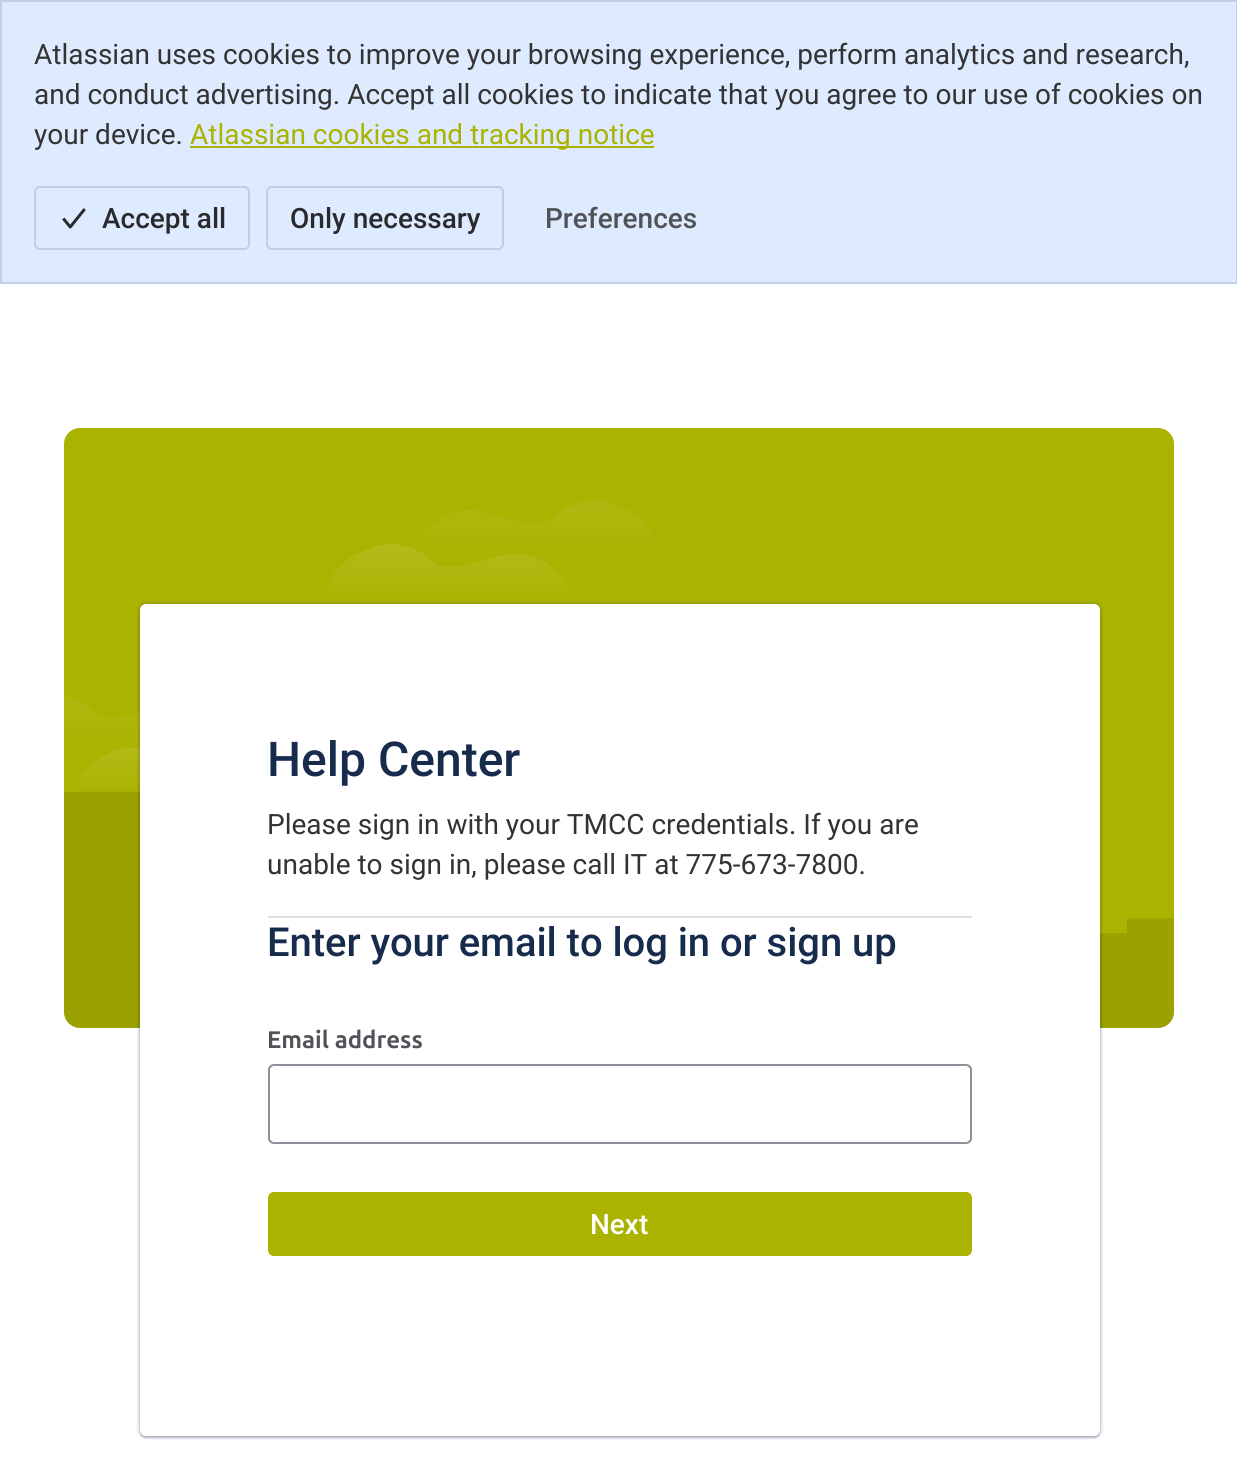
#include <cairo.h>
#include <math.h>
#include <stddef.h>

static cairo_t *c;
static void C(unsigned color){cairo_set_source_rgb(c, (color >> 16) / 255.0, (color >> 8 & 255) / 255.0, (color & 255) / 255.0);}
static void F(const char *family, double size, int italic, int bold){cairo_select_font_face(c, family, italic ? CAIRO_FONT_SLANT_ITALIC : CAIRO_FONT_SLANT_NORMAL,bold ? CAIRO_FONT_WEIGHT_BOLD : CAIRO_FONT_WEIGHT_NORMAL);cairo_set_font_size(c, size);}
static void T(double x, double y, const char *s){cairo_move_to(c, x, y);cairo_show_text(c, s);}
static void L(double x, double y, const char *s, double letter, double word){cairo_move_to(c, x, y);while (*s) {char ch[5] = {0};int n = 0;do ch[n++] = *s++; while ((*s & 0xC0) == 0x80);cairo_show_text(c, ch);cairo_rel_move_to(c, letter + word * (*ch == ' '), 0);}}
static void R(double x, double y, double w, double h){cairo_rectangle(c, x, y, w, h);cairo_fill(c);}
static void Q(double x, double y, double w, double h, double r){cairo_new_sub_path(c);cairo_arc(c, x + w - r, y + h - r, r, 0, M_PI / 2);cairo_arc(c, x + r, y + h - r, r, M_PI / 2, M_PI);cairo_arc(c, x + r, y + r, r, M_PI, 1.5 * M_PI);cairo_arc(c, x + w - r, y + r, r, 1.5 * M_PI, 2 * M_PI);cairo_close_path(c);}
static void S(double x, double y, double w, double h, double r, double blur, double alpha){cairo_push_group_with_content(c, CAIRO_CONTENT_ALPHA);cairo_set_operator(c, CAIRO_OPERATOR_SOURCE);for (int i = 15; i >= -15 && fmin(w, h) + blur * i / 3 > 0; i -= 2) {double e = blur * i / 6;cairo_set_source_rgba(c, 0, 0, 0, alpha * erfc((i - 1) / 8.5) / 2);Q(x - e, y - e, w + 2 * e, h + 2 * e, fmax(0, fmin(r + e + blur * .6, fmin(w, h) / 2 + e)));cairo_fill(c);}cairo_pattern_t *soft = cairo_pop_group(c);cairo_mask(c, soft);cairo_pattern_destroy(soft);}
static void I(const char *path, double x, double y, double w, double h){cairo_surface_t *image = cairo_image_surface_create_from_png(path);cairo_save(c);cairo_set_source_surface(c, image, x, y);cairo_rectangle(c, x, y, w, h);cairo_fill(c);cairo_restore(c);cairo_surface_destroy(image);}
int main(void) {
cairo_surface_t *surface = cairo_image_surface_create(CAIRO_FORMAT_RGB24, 1237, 1466);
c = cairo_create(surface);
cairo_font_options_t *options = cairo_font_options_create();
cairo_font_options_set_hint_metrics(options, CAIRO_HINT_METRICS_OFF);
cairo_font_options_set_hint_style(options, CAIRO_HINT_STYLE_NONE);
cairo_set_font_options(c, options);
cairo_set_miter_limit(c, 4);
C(0xffffff);
cairo_paint(c);
C(0xdeebff);
cairo_rectangle(c,1,1,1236,282);
cairo_fill_preserve(c);
C(0xc2d0e6);
cairo_stroke(c);
F("Roboto",28,0,0);
C(0x333333);
T(34,64,"Atlassian uses cookies to improve your browsing experience, perform analytics and research,");
T(34,104,"and conduct advertising. Accept all cookies to indicate that you agree to our use of cookies on");
T(34,144,"your device.");
C(0xaab300);
R(190,146,464,2);
T(190,144,"Atlassian cookies and tracking notice");
I("1.png",62,208,24,21);
Q(35,187,214,62,5);
C(0xc0cddd);
cairo_stroke(c);
F("Roboto Medium",28,0,0);
C(0x292a2e);
T(102,228,"Accept all");
Q(267,187,236,62,5);
C(0xc0cddd);
cairo_stroke(c);
C(0x292a2e);
T(290,228,"Only necessary");
C(0x505258);
T(545,228,"Preferences");
C(0xaab300);
Q(64,428,1110,600,16);
cairo_fill(c);
I("2.png",64,500,1110,528);
C(0x091e42);
S(138,602,964,836,8,1,.13);
S(140,606,960,832,6,1,.25);
C(0xffffff);
Q(140,604,960,832,6);
cairo_fill(c);
F("Roboto Medium",48,0,0);
C(0x172b4d);
T(267,776,"Help Center");
C(0xdde0e5);
R(268,916,704,2);
F("Roboto",28,0,0);
C(0x333333);
T(267,834,"Please sign in with your TMCC credentials. If you are");
T(267,874,"unable to sign in, please call IT at 775-673-7800.");
F("Roboto Medium",40,0,0);
C(0x172b4d);
L(267,956,"Enter your email to log in or sign up",-.05,0);
F("Ubuntu",24,0,1);
C(0x505258);
T(267,1048,"Email address");
Q(269,1065,702,78,5);
C(0x8c8f97);
cairo_stroke(c);
C(0xaab300);
Q(268,1192,704,64,6);
cairo_fill(c);
F("Roboto Medium",28,0,0);
C(0xffffff);
T(590,1234,"Next");
cairo_surface_write_to_png(surface, "o.png");
cairo_font_options_destroy(options);
cairo_destroy(c);
cairo_surface_destroy(surface);
return 0;
}
